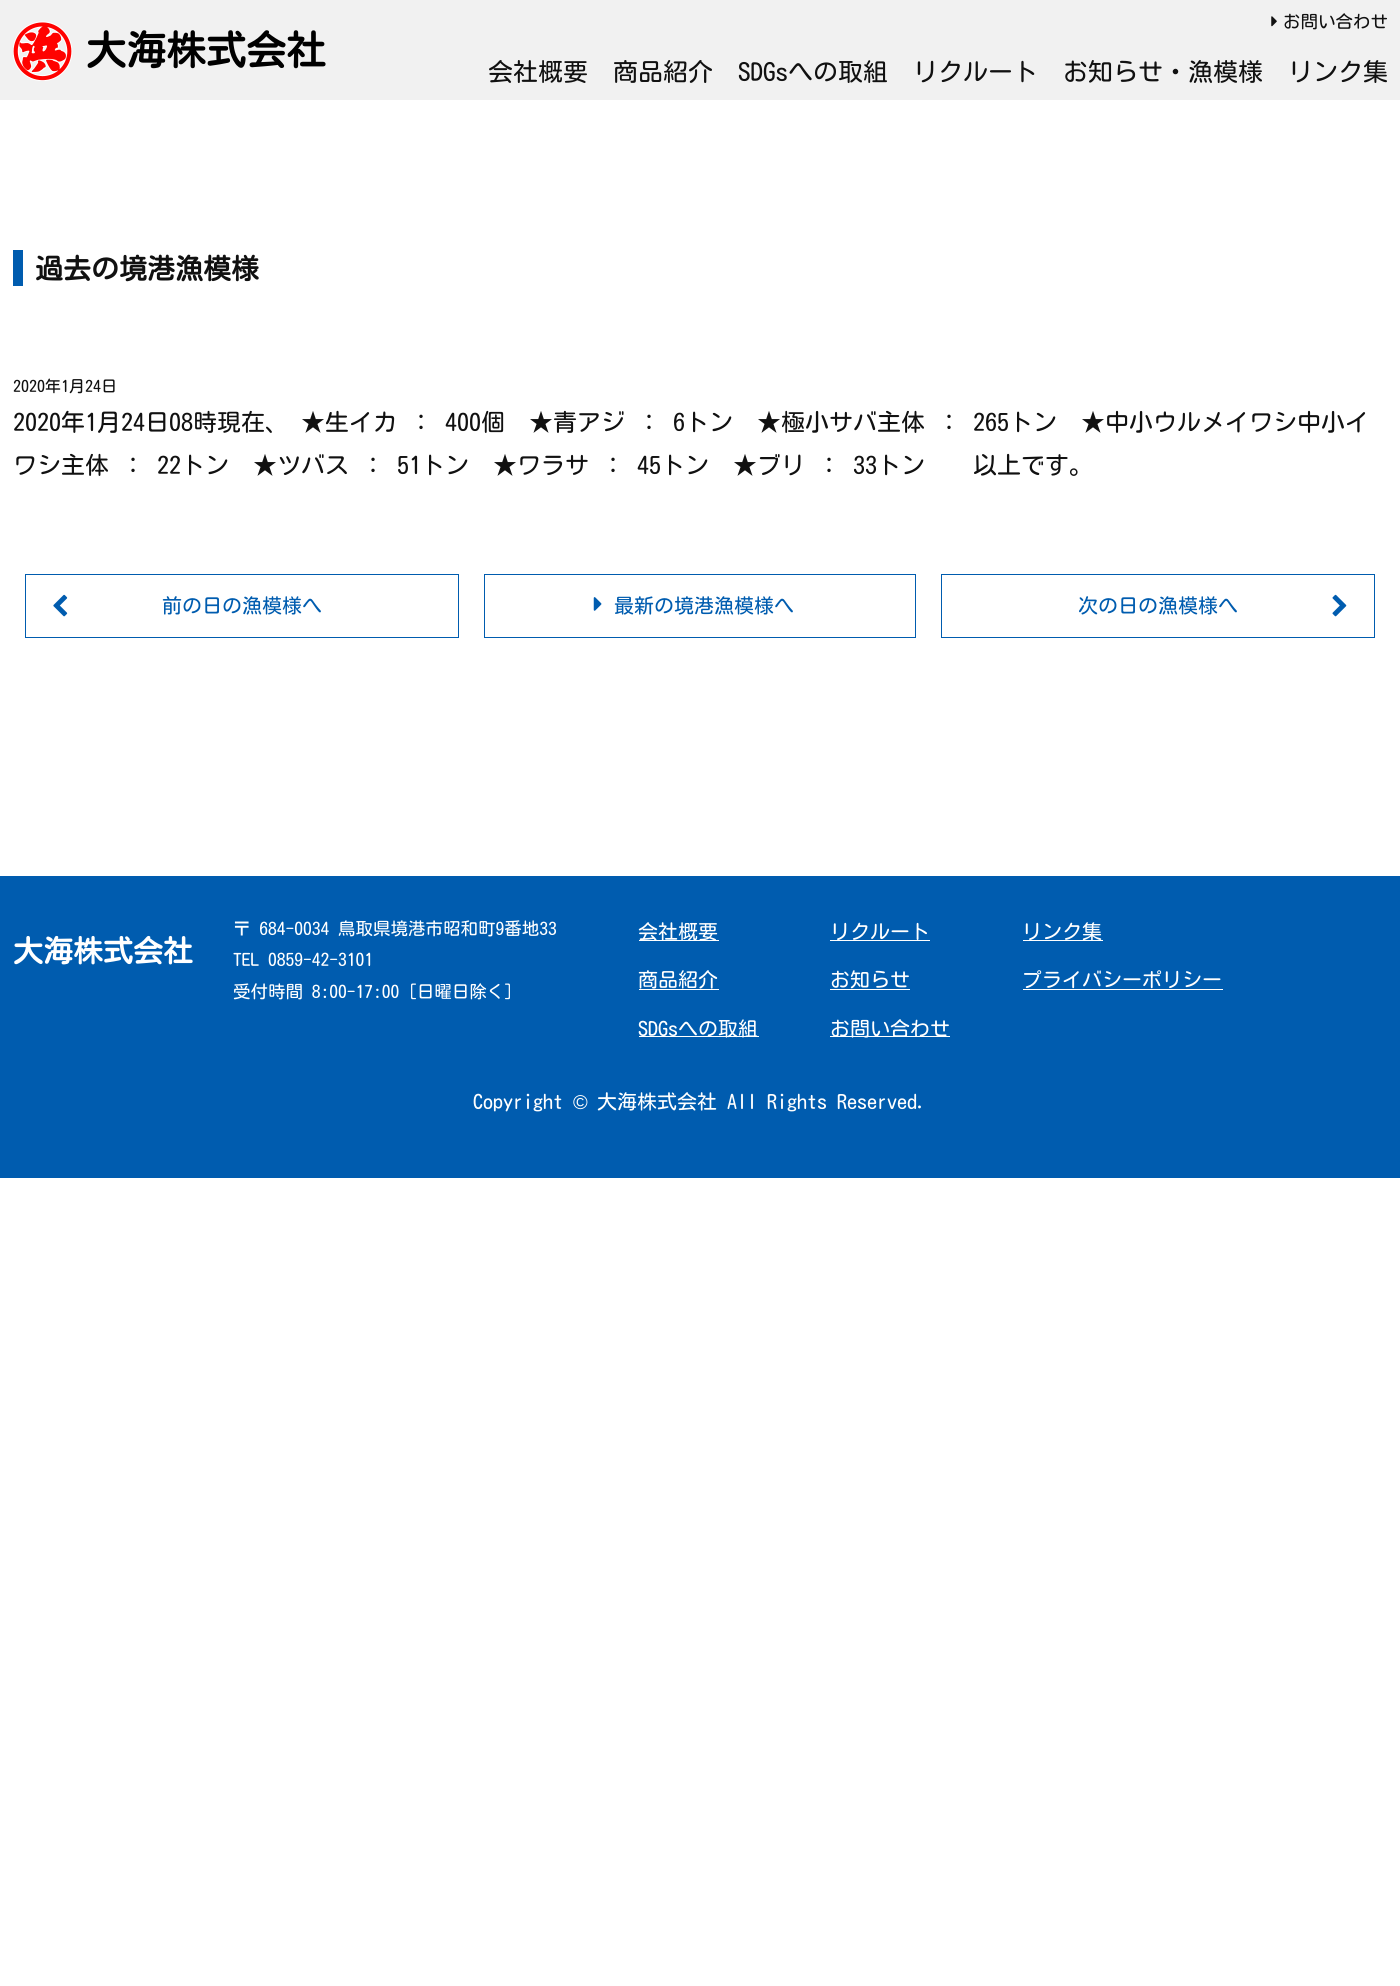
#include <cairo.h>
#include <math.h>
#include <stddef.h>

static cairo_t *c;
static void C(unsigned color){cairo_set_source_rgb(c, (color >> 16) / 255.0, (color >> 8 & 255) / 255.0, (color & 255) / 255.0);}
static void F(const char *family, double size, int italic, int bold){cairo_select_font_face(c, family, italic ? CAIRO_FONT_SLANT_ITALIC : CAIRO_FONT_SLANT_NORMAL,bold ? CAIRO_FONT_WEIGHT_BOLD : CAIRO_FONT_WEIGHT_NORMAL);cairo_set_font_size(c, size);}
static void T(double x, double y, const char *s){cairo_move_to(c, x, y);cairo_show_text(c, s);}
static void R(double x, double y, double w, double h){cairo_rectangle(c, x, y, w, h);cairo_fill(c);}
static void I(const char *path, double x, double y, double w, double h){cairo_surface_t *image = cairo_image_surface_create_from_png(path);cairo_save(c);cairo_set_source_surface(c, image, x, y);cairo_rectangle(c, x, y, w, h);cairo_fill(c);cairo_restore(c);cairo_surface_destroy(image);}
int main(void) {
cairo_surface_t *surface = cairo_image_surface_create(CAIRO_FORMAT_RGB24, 1400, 1986);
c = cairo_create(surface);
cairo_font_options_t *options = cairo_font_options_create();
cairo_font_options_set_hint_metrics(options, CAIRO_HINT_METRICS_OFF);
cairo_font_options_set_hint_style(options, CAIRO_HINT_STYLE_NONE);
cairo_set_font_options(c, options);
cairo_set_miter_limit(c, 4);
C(0xffffff);
cairo_paint(c);
C(0xf1f1f1);
R(0,0,1400,100);
I("1.png",13,21,60,60);
F("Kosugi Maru",40,0,1);
C(0x000000);
T(86,65,"大海株式会社");
I("2.png",1271,16,6,11);
F("Kosugi Maru",17.5,0,0);
C(0x111111);
T(1283,28,"お問い合わせ");
F("Kosugi Maru",25,0,0);
T(488,81,"会社概要");
T(613,81,"商品紹介");
T(738,81,"SDGsへの取組");
T(913,81,"リクルート");
T(1063,81,"お知らせ・漁模様");
T(1288,81,"リンク集");
C(0x005caf);
R(13,250,10,36);
F("Kosugi Maru",28,0,1);
C(0x111111);
T(35,279,"過去の境港漁模様");
F("Kosugi Maru",16,0,0);
T(13,392,"2020年1月24日");
F("Kosugi Maru",24,0,0);
T(13,431,"2020年1月24日08時現在、 ★生イカ ： 400個　★青アジ ： 6トン　★極小サバ主体 ： 265トン　★中小ウルメイワシ中小イ");
T(13,474,"ワシ主体 ： 22トン　★ツバス ： 51トン　★ワラサ ： 45トン　★ブリ ： 33トン　　以上です。");
cairo_rectangle(c,25.5,574.5,433,63);
C(0x005caf);
cairo_set_line_width(c,1);
cairo_stroke(c);
I("3.png",53,594,15,23);
F("Kosugi Maru",20,0,0);
T(162,613,"前の日の漁模様へ");
cairo_rectangle(c,484.5,574.5,431,63);
cairo_stroke(c);
I("4.png",593,597,9,14);
T(614,613,"最新の境港漁模様へ");
cairo_rectangle(c,941.5,574.5,433,63);
cairo_stroke(c);
T(1078,613,"次の日の漁模様へ");
I("5.png",1332,594,15,23);
R(0,876,1400,302);
F("Kosugi Maru",30,0,1);
C(0xffffff);
T(13,962,"大海株式会社");
F("Kosugi Maru",17.5,0,0);
T(233,935,"〒 684-0034 鳥取県境港市昭和町9番地33");
T(233,966,"TEL 0859-42-3101");
T(233,998,"受付時間 8:00-17:00 [日曜日除く]");
R(639,940,80,1);
F("Kosugi Maru",20,0,0);
T(638,939,"会社概要");
T(638,987,"商品紹介");
R(639,989,80,1);
R(639,1036,120,1);
T(638,1036,"SDGsへの取組");
T(830,939,"リクルート");
R(830,940,100,1);
T(830,987,"お知らせ");
R(830,989,80,1);
R(830,1036,120,1);
T(830,1036,"お問い合わせ");
R(1023,940,80,1);
T(1022,939,"リンク集");
T(1022,987,"プライバシーポリシー");
R(1023,989,200,1);
T(473,1109,"Copyright");
F("Liberation Sans",20,0,0);
T(573,1109,"©");
F("Kosugi Maru",20,0,0);
T(597,1109,"大海株式会社 All Rights Reserved.");
cairo_surface_write_to_png(surface, "o.png");
cairo_font_options_destroy(options);
cairo_destroy(c);
cairo_surface_destroy(surface);
return 0;
}
